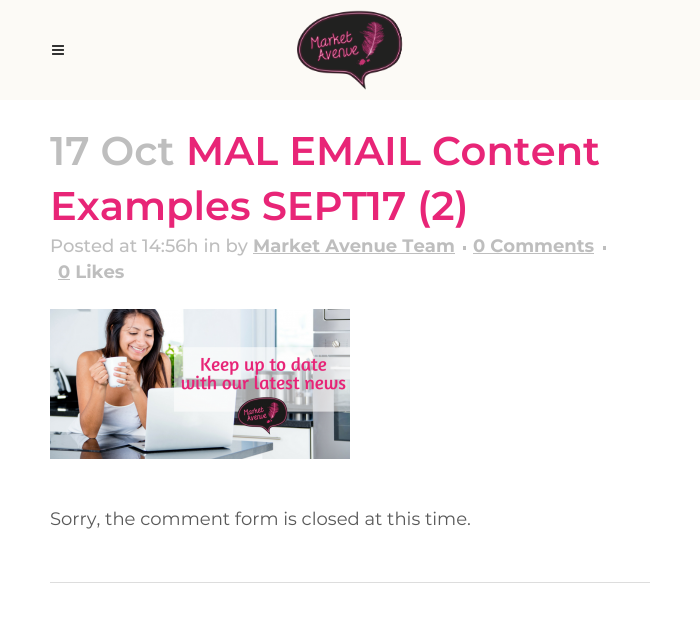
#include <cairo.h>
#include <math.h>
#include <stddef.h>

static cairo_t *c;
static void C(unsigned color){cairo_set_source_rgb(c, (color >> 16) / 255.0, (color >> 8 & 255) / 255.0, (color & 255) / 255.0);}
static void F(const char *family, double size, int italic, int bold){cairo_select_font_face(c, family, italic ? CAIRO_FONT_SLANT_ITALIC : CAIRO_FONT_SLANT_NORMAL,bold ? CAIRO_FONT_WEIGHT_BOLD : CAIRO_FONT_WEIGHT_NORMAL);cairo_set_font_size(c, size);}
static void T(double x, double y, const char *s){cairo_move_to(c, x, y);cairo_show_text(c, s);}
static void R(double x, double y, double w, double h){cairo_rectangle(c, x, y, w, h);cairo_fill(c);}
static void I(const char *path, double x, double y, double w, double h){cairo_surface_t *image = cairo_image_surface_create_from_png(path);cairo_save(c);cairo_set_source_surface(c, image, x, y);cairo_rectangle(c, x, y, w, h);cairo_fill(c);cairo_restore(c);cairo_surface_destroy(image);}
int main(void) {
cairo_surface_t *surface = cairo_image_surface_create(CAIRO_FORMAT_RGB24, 700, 619);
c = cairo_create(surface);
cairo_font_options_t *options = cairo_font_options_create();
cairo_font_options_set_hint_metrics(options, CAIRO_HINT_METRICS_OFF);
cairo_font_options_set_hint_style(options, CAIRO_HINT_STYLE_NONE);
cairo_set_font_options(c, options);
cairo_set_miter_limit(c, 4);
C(0xffffff);
cairo_paint(c);
C(0xfcfaf6);
R(0,0,700,100);
I("1.png",52,45,12,10);
I("2.png",297,10,106,80);
F("Montserrat SemiBold",40,0,0);
C(0xbebebe);
T(50,165,"17 Oct");
C(0xe82577);
T(186,165,"MAL EMAIL Content");
T(50,220,"Examples SEPT17 (2)");
F("Montserrat Medium",18,0,0);
C(0xbebebe);
T(50,252,"Posted at 14:56h in by");
F("Montserrat",18,0,1);
T(253,252,"Market Avenue Team");
R(253,253,202,1);
R(463,246,3,4);
T(473,252,"0 Comments");
R(473,253,121,1);
R(603,246,3,4);
T(58,278,"0 Likes");
R(58,279,12,1);
I("3.png",50,309,300,150);
F("Montserrat",18,0,0);
C(0x595959);
T(50,525,"Sorry, the comment form is closed at this time.");
C(0xdddddd);
R(50,582,600,1);
cairo_surface_write_to_png(surface, "o.png");
cairo_font_options_destroy(options);
cairo_destroy(c);
cairo_surface_destroy(surface);
return 0;
}
